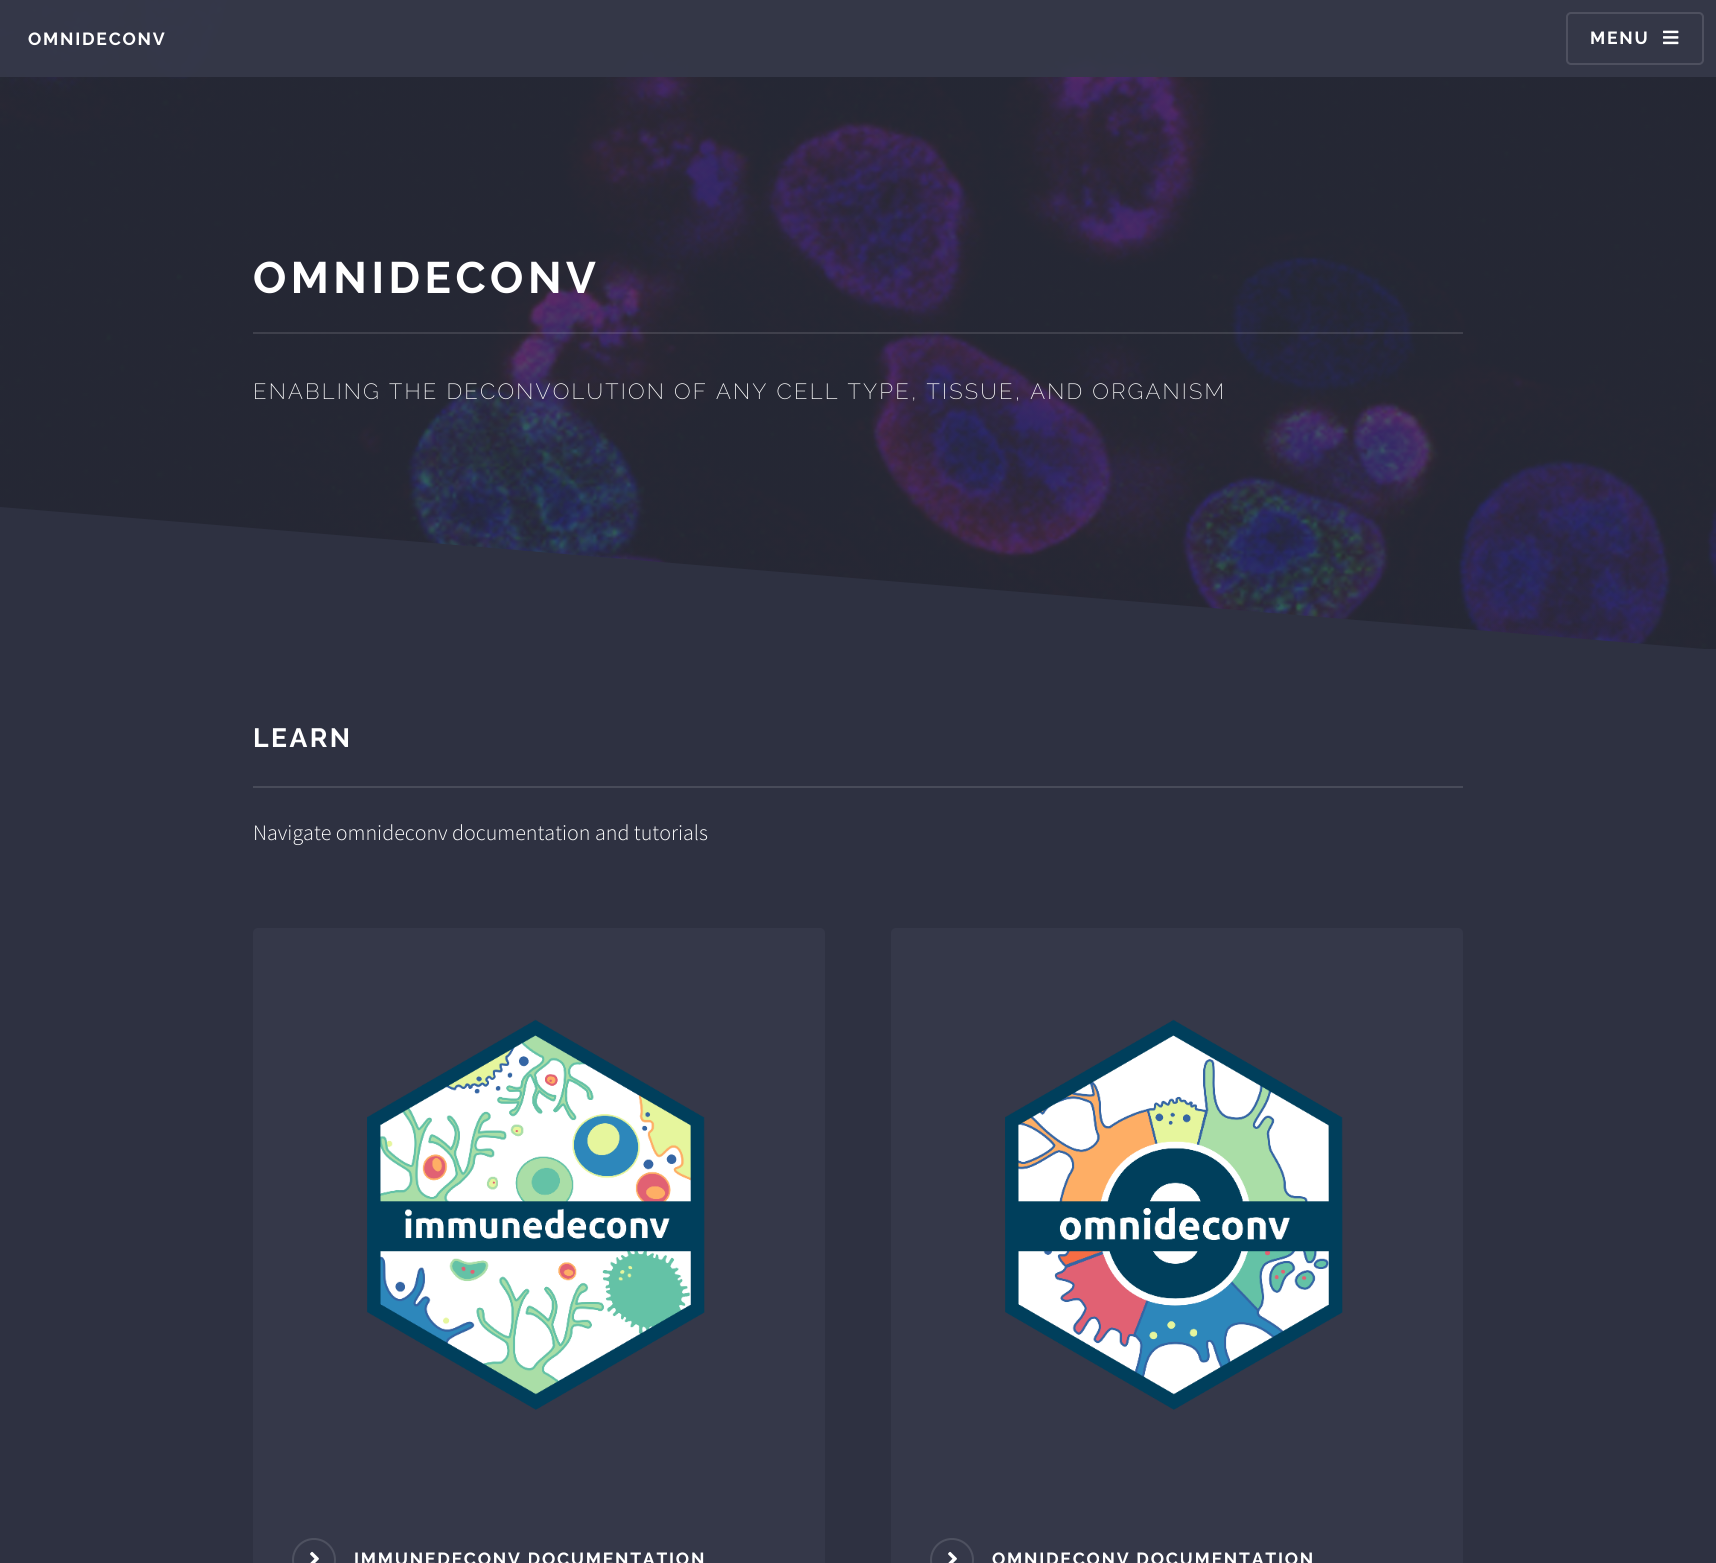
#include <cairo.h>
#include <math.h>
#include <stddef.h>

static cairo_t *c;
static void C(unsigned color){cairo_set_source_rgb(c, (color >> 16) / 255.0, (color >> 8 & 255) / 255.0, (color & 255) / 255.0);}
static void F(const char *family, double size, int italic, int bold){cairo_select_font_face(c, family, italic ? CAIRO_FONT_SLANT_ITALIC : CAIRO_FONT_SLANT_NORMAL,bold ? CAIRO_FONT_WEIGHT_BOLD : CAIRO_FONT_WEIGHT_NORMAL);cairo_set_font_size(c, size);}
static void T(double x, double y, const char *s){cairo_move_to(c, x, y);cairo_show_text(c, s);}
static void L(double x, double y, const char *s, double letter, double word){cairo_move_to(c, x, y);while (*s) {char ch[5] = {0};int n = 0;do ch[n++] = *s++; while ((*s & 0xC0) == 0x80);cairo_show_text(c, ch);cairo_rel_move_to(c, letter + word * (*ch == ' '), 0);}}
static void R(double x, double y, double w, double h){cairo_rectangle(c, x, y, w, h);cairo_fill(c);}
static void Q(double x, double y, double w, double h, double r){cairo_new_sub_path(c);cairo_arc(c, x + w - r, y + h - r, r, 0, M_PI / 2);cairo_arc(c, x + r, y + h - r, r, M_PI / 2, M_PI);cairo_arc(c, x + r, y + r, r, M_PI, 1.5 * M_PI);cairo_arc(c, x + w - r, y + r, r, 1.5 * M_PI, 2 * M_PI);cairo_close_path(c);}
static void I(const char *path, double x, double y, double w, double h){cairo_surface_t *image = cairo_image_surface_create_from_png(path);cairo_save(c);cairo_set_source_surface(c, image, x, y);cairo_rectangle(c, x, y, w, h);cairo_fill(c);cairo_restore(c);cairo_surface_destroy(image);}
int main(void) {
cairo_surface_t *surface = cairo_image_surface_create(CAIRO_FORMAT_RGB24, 1716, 1563);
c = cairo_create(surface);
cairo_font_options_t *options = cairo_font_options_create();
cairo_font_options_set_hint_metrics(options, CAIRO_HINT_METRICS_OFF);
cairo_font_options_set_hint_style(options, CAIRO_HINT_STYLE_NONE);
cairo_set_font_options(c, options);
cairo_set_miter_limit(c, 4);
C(0xffffff);
cairo_paint(c);
I("1.png",0,0,1716,649);
cairo_set_source_rgba(c,0.208,0.22,0.286,0.95);
R(0,0,1716,77);
F("Raleway",17.6,0,1);
C(0xffffff);
L(28,45,"OMNIDECONV",1.75,0);
Q(1567,13,136,51,4);
C(0x4e505f);
cairo_stroke(c);
C(0xffffff);
L(1590,44,"MENU",1.75,0);
I("2.png",1663,30,16,15);
cairo_set_source_rgba(c,1,1,1,0.12);
R(253,332,1210,2);
F("Raleway",44,0,1);
C(0xffffff);
L(253,293,"OMNIDECONV",4.5,0);
F("Raleway ExtraLight",22,0,0);
L(253,399,"ENABLING THE DECONVOLUTION OF ANY CELL TYPE, TISSUE, AND ORGANISM",2.2,0);
C(0x2e3141);
R(0,650,1716,913);
cairo_new_path(c);
cairo_move_to(c,1716,650);
cairo_line_to(c,0,507);
cairo_line_to(c,0,650);
cairo_close_path(c);
cairo_fill(c);
R(1704,649,12,1);
C(0x484b59);
R(253,786,1210,2);
F("Raleway",26.5,0,1);
C(0xffffff);
L(253,747,"LEARN",2.5,0);
F("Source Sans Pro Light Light",22,0,0);
T(253,840,"Navigate omnideconv documentation and tutorials");
C(0x353849);
Q(253,928,572,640,5);
cairo_fill(c);
I("3.png",367,1019,338,391);
cairo_arc(c,314,1560,21,0,2 * M_PI);
C(0x4e5160);
cairo_stroke(c);
I("4.png",310,1551,9,12);
F("Raleway",17.6,0,1);
C(0xffffff);
L(354,1565,"IMMUNEDECONV DOCUMENTATION",1.75,0);
C(0x353849);
Q(891,928,572,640,5);
cairo_fill(c);
I("5.png",1005,1019,338,391);
cairo_arc(c,952,1560,21,0,2 * M_PI);
C(0x4e5160);
cairo_stroke(c);
I("4.png",948,1551,9,12);
C(0xffffff);
L(992,1565,"OMNIDECONV DOCUMENTATION",1.75,0);
cairo_surface_write_to_png(surface, "o.png");
cairo_font_options_destroy(options);
cairo_destroy(c);
cairo_surface_destroy(surface);
return 0;
}
